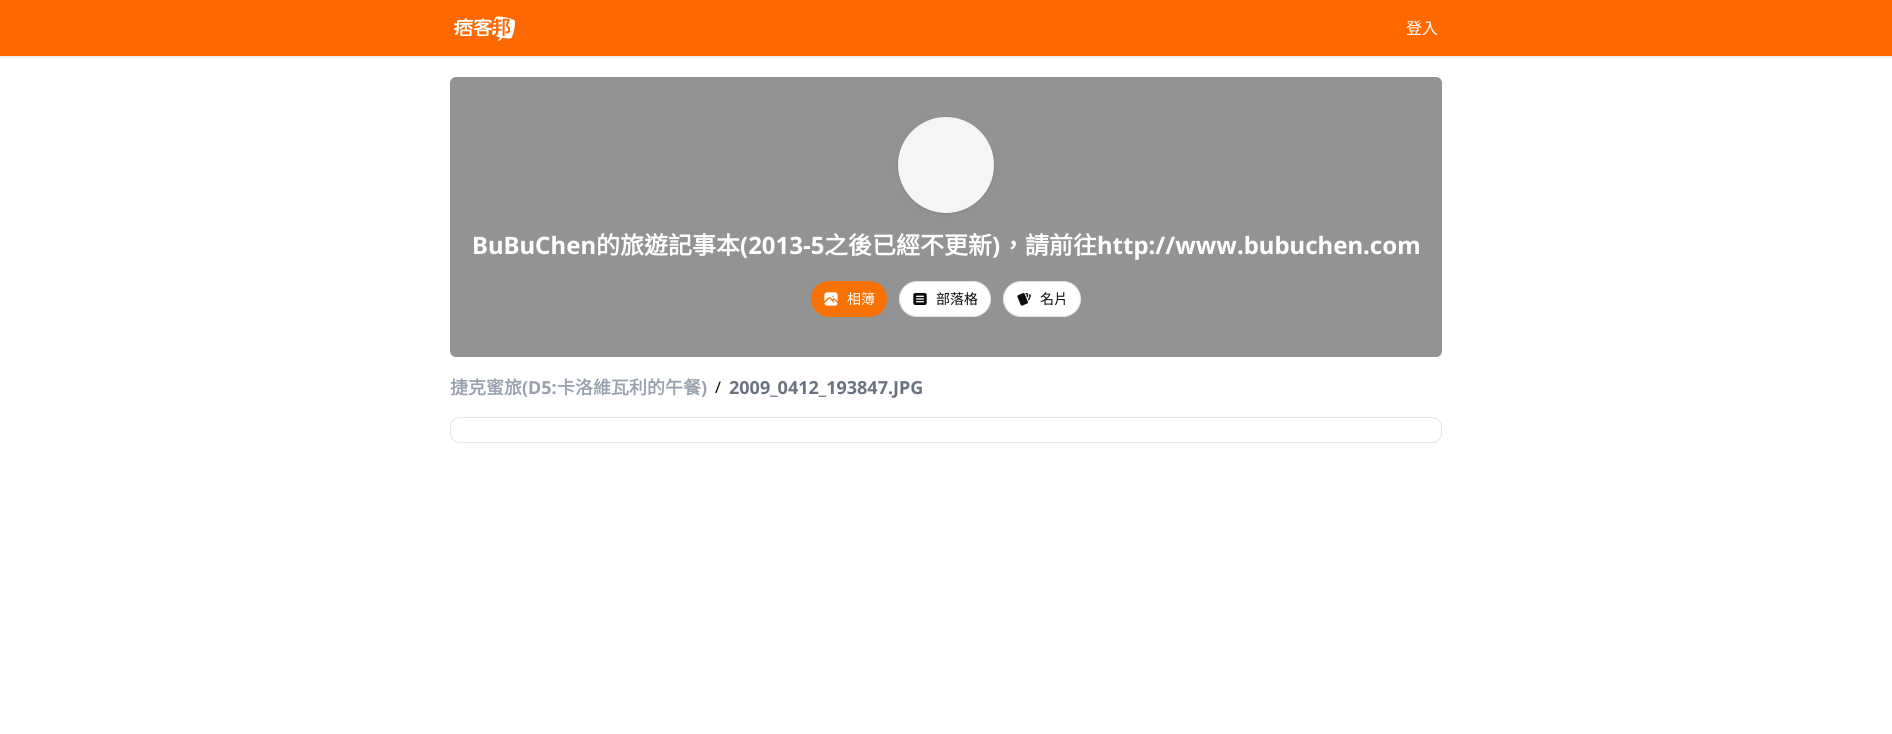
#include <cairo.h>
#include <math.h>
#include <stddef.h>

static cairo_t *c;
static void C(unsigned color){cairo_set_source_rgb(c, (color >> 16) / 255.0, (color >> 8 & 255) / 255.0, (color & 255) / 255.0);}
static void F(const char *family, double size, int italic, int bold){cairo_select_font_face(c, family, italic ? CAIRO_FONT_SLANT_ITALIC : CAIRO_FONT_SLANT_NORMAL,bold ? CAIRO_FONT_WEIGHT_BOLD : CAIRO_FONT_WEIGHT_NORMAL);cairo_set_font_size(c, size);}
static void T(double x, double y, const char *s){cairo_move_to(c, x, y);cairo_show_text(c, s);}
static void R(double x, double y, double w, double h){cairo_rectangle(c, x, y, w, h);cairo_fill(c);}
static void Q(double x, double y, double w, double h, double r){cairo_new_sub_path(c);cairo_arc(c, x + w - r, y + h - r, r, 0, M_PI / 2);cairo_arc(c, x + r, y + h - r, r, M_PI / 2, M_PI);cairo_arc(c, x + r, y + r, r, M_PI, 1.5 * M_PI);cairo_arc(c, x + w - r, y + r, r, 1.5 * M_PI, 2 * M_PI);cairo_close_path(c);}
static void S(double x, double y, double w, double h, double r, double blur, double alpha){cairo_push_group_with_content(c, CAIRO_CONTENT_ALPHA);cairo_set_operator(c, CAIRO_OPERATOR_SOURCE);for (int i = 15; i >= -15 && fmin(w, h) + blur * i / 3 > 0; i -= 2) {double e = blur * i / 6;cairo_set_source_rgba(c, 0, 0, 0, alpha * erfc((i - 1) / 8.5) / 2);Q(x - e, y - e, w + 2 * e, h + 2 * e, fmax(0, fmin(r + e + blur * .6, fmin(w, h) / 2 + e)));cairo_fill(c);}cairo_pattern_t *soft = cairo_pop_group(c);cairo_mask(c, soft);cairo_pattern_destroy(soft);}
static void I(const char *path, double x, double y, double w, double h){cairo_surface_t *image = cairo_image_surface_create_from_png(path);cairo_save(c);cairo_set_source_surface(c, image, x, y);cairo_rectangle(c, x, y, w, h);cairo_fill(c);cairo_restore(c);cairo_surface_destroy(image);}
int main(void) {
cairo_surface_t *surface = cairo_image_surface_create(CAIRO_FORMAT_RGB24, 1892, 734);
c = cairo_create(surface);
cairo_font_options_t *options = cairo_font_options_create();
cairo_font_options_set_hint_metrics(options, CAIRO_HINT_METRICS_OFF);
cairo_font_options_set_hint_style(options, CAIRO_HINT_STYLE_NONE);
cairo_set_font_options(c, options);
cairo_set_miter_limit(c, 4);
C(0xffffff);
cairo_paint(c);
C(0x000000);
S(1,2,1890,54,0,1,.1);
S(0,1,1892,56,0,1.5,.1);
C(0xff6900);
R(0,0,1892,56);
I("1.png",454,16,61,25);
F("Noto Sans CJK TC",16,0,0);
C(0xffffff);
T(1406,34,"登入");
C(0x939393);
Q(450,77,992,280,6);
cairo_fill(c);
C(0x000000);
S(899,119,94,94,47,1,.1);
S(898,118,96,96,48,1.5,.1);
C(0xf5f5f5);
cairo_arc(c,946,165,48,0,2 * M_PI);
cairo_fill(c);
F("Noto Sans",24,0,1);
C(0xffffff);
T(472,254,"BuBuChen");
F("Noto Sans CJK TC",24,0,1);
T(596,254,"的旅遊記事本");
F("Noto Sans",24,0,1);
T(740,254,"(2013-5");
F("Noto Sans CJK TC",24,0,1);
T(824,254,"之後已經不更新");
F("Noto Sans",24,0,1);
T(992,254,")");
F("Noto Sans CJK TC",24,0,1);
T(1001,254,"，請前往");
F("Noto Sans",24,0,1);
T(1097,254,"http://www.bubuchen.com");
C(0xf87103);
Q(811,281,76,36,18);
cairo_fill(c);
I("2.png",824,292,14,14);
F("Noto Sans CJK TC",14,0,0);
C(0xffffff);
T(847,304,"相簿");
Q(899.5,281.5,91,35,17.5);
cairo_fill_preserve(c);
C(0xe5e5e5);
cairo_set_line_width(c,1);
cairo_stroke(c);
I("3.png",913,293,14,12);
C(0x0a0a0a);
T(936,304,"部落格");
C(0xffffff);
Q(1003.5,281.5,77,35,17.5);
cairo_fill_preserve(c);
C(0xe5e5e5);
cairo_stroke(c);
I("4.png",1017,293,14,13);
C(0x0a0a0a);
T(1040,304,"名片");
F("Noto Sans CJK TC",18,0,1);
C(0x99a1af);
T(450,394,"捷克蜜旅");
F("Noto Sans",18,0,1);
T(522,394,"(D5:");
F("Noto Sans CJK TC",18,0,1);
T(557,394,"卡洛維瓦利的午餐");
F("Noto Sans",18,0,1);
T(701,394,")");
F("Noto Sans",16,0,0);
C(0x0a0a0a);
T(715,393,"/");
F("Noto Sans",18,0,1);
C(0x6a7282);
T(729,394,"2009_0412_193847.JPG");
Q(450.5,417.5,991,25,9.5);
C(0xe5e5e5);
cairo_stroke(c);
cairo_surface_write_to_png(surface, "o.png");
cairo_font_options_destroy(options);
cairo_destroy(c);
cairo_surface_destroy(surface);
return 0;
}
